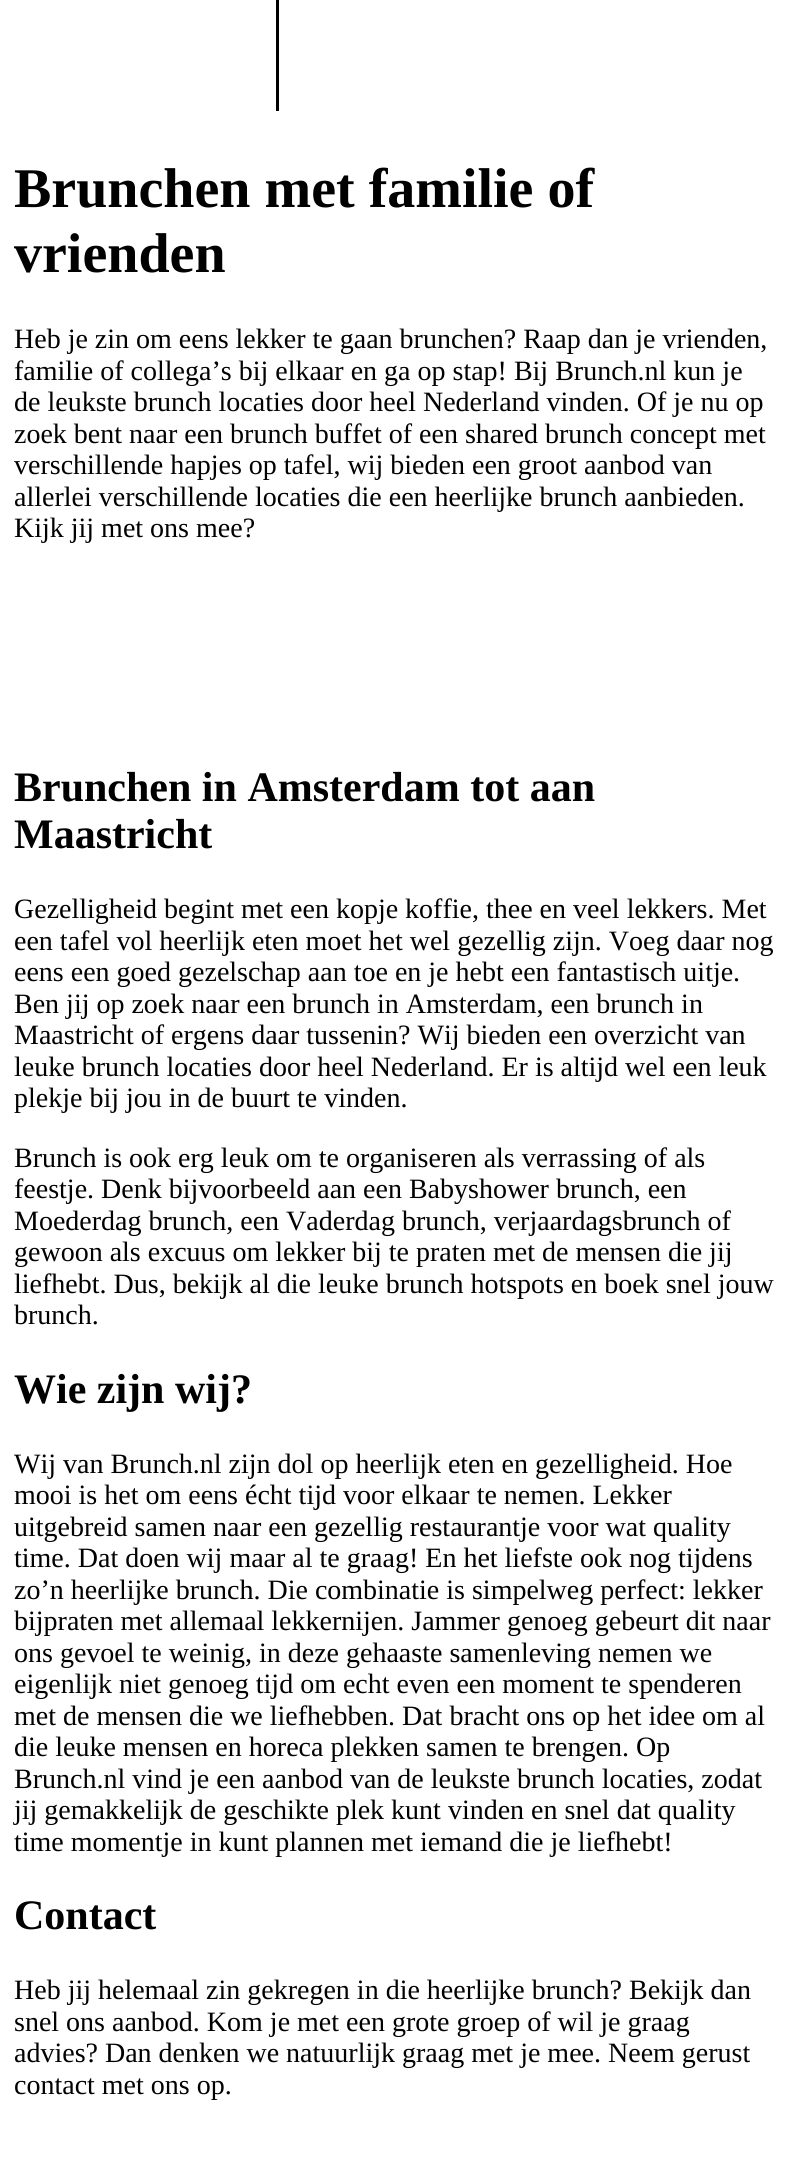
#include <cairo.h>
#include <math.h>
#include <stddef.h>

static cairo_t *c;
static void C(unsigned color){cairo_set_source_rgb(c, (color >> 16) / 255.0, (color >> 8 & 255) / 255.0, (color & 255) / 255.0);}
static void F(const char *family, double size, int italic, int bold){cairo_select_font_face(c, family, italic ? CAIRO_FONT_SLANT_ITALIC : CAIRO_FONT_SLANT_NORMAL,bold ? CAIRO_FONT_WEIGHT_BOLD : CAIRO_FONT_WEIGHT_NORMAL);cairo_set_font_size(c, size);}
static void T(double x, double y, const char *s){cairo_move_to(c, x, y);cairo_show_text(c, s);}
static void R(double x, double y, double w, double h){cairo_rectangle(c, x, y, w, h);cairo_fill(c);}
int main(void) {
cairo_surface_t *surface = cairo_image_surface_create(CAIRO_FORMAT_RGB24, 789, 2176);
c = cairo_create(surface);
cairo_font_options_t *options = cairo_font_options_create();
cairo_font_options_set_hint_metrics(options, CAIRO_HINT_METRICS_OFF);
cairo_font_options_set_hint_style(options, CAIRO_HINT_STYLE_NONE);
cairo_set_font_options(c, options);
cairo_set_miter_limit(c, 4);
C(0xffffff);
cairo_paint(c);
C(0x000000);
R(276,0,3,111);
F("Liberation Serif",56,0,1);
T(14,207,"Brunchen met familie of");
T(14,272,"vrienden");
F("Liberation Serif",28,0,0);
T(14,348,"Heb je zin om eens lekker te gaan brunchen? Raap dan je vrienden,");
T(14,380,"familie of collega’s bij elkaar en ga op stap! Bij Brunch.nl kun je");
T(14,411,"de leukste brunch locaties door heel Nederland vinden. Of je nu op");
T(14,443,"zoek bent naar een brunch buffet of een shared brunch concept met");
T(14,474,"verschillende hapjes op tafel, wij bieden een groot aanbod van");
T(14,506,"allerlei verschillende locaties die een heerlijke brunch aanbieden.");
T(14,537,"Kijk jij met ons mee?");
F("Liberation Serif",42,0,1);
T(14,801,"Brunchen in Amsterdam tot aan");
T(14,848,"Maastricht");
F("Liberation Serif",28,0,0);
T(14,918,"Gezelligheid begint met een kopje koffie, thee en veel lekkers. Met");
T(14,950,"een tafel vol heerlijk eten moet het wel gezellig zijn. Voeg daar nog");
T(14,981,"eens een goed gezelschap aan toe en je hebt een fantastisch uitje.");
T(14,1013,"Ben jij op zoek naar een brunch in Amsterdam, een brunch in");
T(14,1044,"Maastricht of ergens daar tussenin? Wij bieden een overzicht van");
T(14,1076,"leuke brunch locaties door heel Nederland. Er is altijd wel een leuk");
T(14,1107,"plekje bij jou in de buurt te vinden.");
T(14,1167,"Brunch is ook erg leuk om te organiseren als verrassing of als");
T(14,1198,"feestje. Denk bijvoorbeeld aan een Babyshower brunch, een");
T(14,1230,"Moederdag brunch, een Vaderdag brunch, verjaardagsbrunch of");
T(14,1261,"gewoon als excuus om lekker bij te praten met de mensen die jij");
T(14,1293,"liefhebt. Dus, bekijk al die leuke brunch hotspots en boek snel jouw");
T(14,1324,"brunch.");
F("Liberation Serif",42,0,1);
T(14,1403,"Wie zijn wij?");
F("Liberation Serif",28,0,0);
T(14,1473,"Wij van Brunch.nl zijn dol op heerlijk eten en gezelligheid. Hoe");
T(14,1504,"mooi is het om eens écht tijd voor elkaar te nemen. Lekker");
T(14,1536,"uitgebreid samen naar een gezellig restaurantje voor wat quality");
T(14,1567,"time. Dat doen wij maar al te graag! En het liefste ook nog tijdens");
T(14,1599,"zo’n heerlijke brunch. Die combinatie is simpelweg perfect: lekker");
T(14,1630,"bijpraten met allemaal lekkernijen. Jammer genoeg gebeurt dit naar");
T(14,1662,"ons gevoel te weinig, in deze gehaaste samenleving nemen we");
T(14,1693,"eigenlijk niet genoeg tijd om echt even een moment te spenderen");
T(14,1725,"met de mensen die we liefhebben. Dat bracht ons op het idee om al");
T(14,1756,"die leuke mensen en horeca plekken samen te brengen. Op");
T(14,1788,"Brunch.nl vind je een aanbod van de leukste brunch locaties, zodat");
T(14,1819,"jij gemakkelijk de geschikte plek kunt vinden en snel dat quality");
T(14,1851,"time momentje in kunt plannen met iemand die je liefhebt!");
F("Liberation Serif",42,0,1);
T(14,1929,"Contact");
F("Liberation Serif",28,0,0);
T(14,1999,"Heb jij helemaal zin gekregen in die heerlijke brunch? Bekijk dan");
T(14,2031,"snel ons aanbod. Kom je met een grote groep of wil je graag");
T(14,2062,"advies? Dan denken we natuurlijk graag met je mee. Neem gerust");
T(14,2094,"contact met ons op.");
cairo_surface_write_to_png(surface, "o.png");
cairo_font_options_destroy(options);
cairo_destroy(c);
cairo_surface_destroy(surface);
return 0;
}
